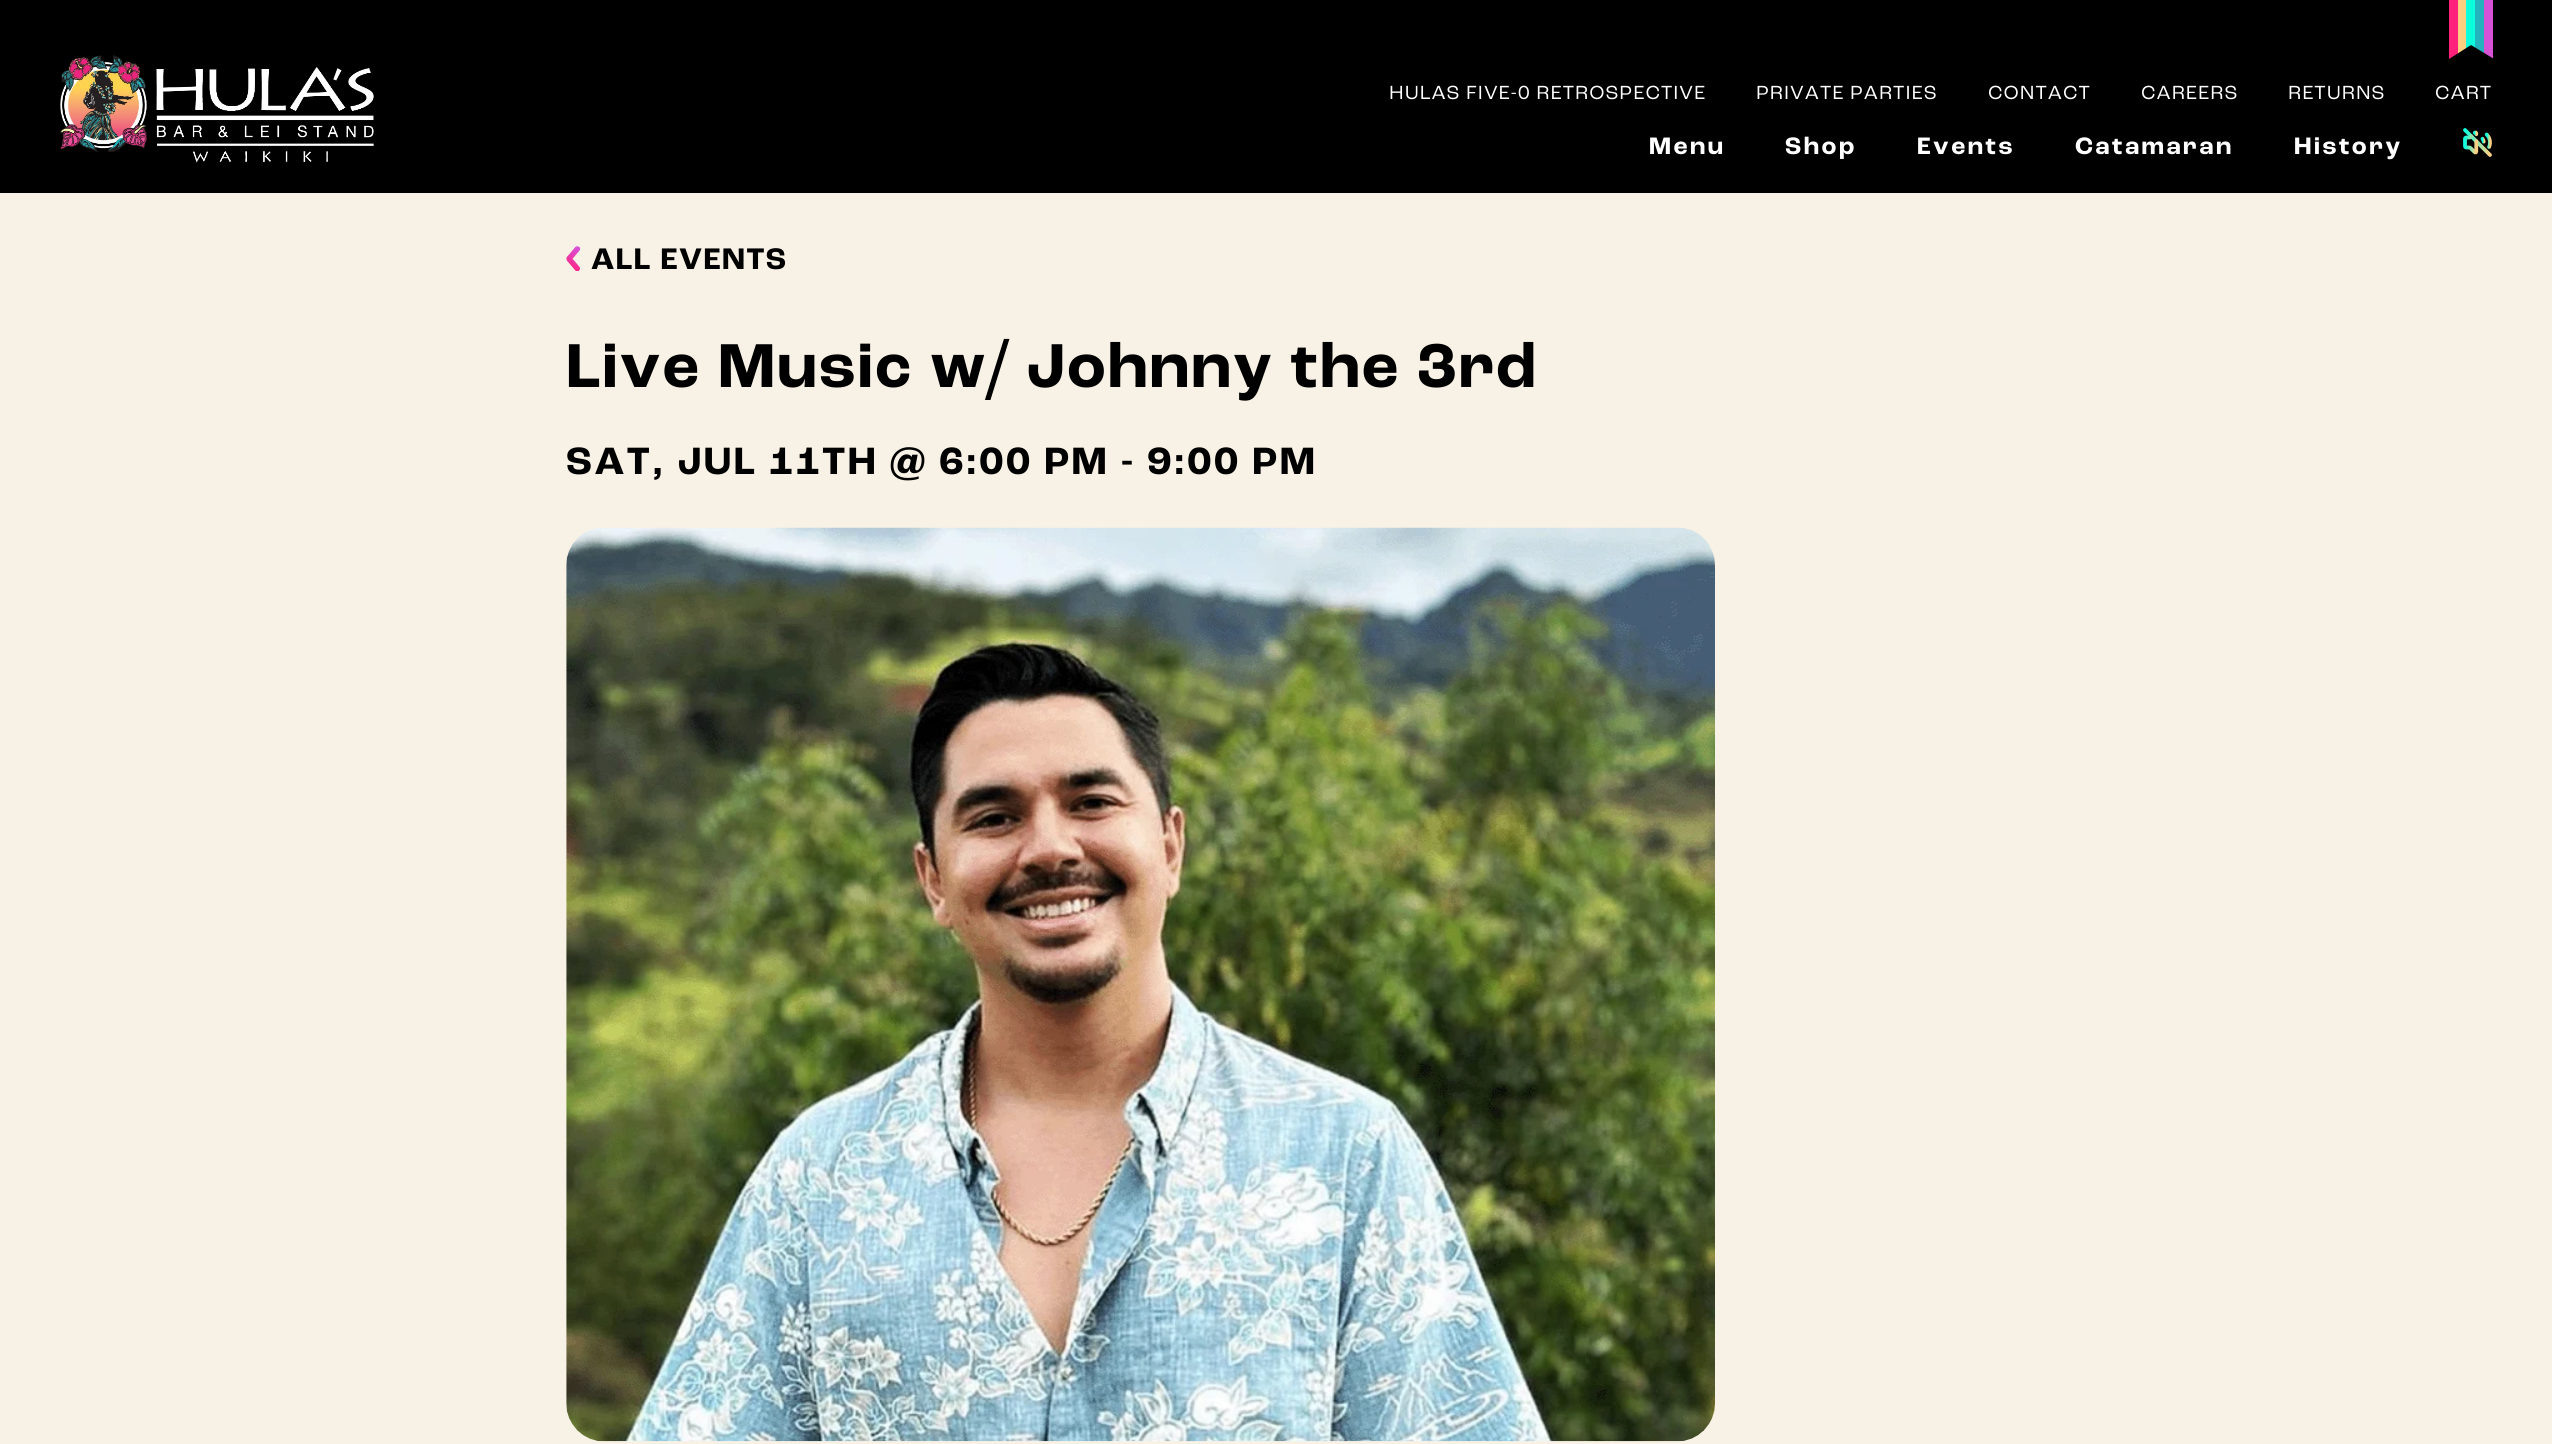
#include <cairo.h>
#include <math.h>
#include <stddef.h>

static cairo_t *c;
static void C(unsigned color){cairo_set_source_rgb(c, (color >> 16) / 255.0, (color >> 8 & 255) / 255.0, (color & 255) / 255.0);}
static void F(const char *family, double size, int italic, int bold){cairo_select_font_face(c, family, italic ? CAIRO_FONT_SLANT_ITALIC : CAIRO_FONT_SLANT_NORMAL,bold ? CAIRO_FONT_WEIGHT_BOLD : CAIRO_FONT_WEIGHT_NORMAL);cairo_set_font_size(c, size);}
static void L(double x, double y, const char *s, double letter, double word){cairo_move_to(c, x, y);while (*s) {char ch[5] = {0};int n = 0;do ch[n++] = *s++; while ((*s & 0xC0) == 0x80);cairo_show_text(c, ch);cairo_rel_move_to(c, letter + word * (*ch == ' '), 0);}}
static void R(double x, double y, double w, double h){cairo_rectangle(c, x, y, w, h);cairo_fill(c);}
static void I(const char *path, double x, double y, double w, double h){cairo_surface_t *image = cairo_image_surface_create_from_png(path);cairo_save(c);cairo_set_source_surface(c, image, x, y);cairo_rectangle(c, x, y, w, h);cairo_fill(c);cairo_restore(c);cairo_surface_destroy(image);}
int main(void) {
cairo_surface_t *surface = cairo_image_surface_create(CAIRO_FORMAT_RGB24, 2552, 1444);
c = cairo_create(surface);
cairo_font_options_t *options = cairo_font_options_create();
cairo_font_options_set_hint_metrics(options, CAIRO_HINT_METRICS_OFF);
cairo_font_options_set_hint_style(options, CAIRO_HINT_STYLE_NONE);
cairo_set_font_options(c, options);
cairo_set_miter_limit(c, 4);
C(0xf8f1e5);
cairo_paint(c);
C(0x000000);
R(0,0,2552,193);
C(0xff217c);
R(2449,0,9,59);
C(0xffcf81);
R(2458,0,8,59);
C(0x0cffdd);
R(2466,0,9,49);
C(0x24b2bd);
R(2475,0,9,53);
C(0xd751d7);
R(2484,0,9,59);
C(0x000000);
cairo_new_path(c);
cairo_move_to(c,2494,59);
cairo_line_to(c,2449,59);
cairo_line_to(c,2471,45);
cairo_close_path(c);
cairo_fill(c);
I("1.png",60,55,314,108);
F("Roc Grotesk",20,0,0);
C(0xffffff);
L(1389,99,"HULAS FIVE-0 RETROSPECTIVE",1,0);
L(1756,99,"PRIVATE PARTIES",1,0);
L(1988,99,"CONTACT",1,0);
L(2141,99,"CAREERS",1,0);
L(2288,99,"RETURNS",1,0);
L(2435,99,"CART",1,0);
F("Roc Grotesk",25,0,1);
L(1649,154,"Menu",2.5,0);
L(1785,154,"Shop",2.5,0);
L(1917,154,"Events",2.5,0);
L(2075,154,"Catamaran",2.5,0);
L(2294,154,"History",2.5,0);
I("2.png",2463,128,29,29);
I("3.png",566,246,14,25);
F("Roc Grotesk",31.25,0,1);
C(0x000000);
L(591,269,"ALL EVENTS",1.5,0);
F("Roc Grotesk",65,0,1);
L(566,387,"Live Music w/ Johnny the 3rd",2.05,0);
F("Roc Grotesk",40,0,1);
L(566,474,"SAT, JUL 11TH @ 6:00 PM - 9:00 PM",2.5,0);
I("4.png",566,527,1149,915);
cairo_surface_write_to_png(surface, "o.png");
cairo_font_options_destroy(options);
cairo_destroy(c);
cairo_surface_destroy(surface);
return 0;
}
